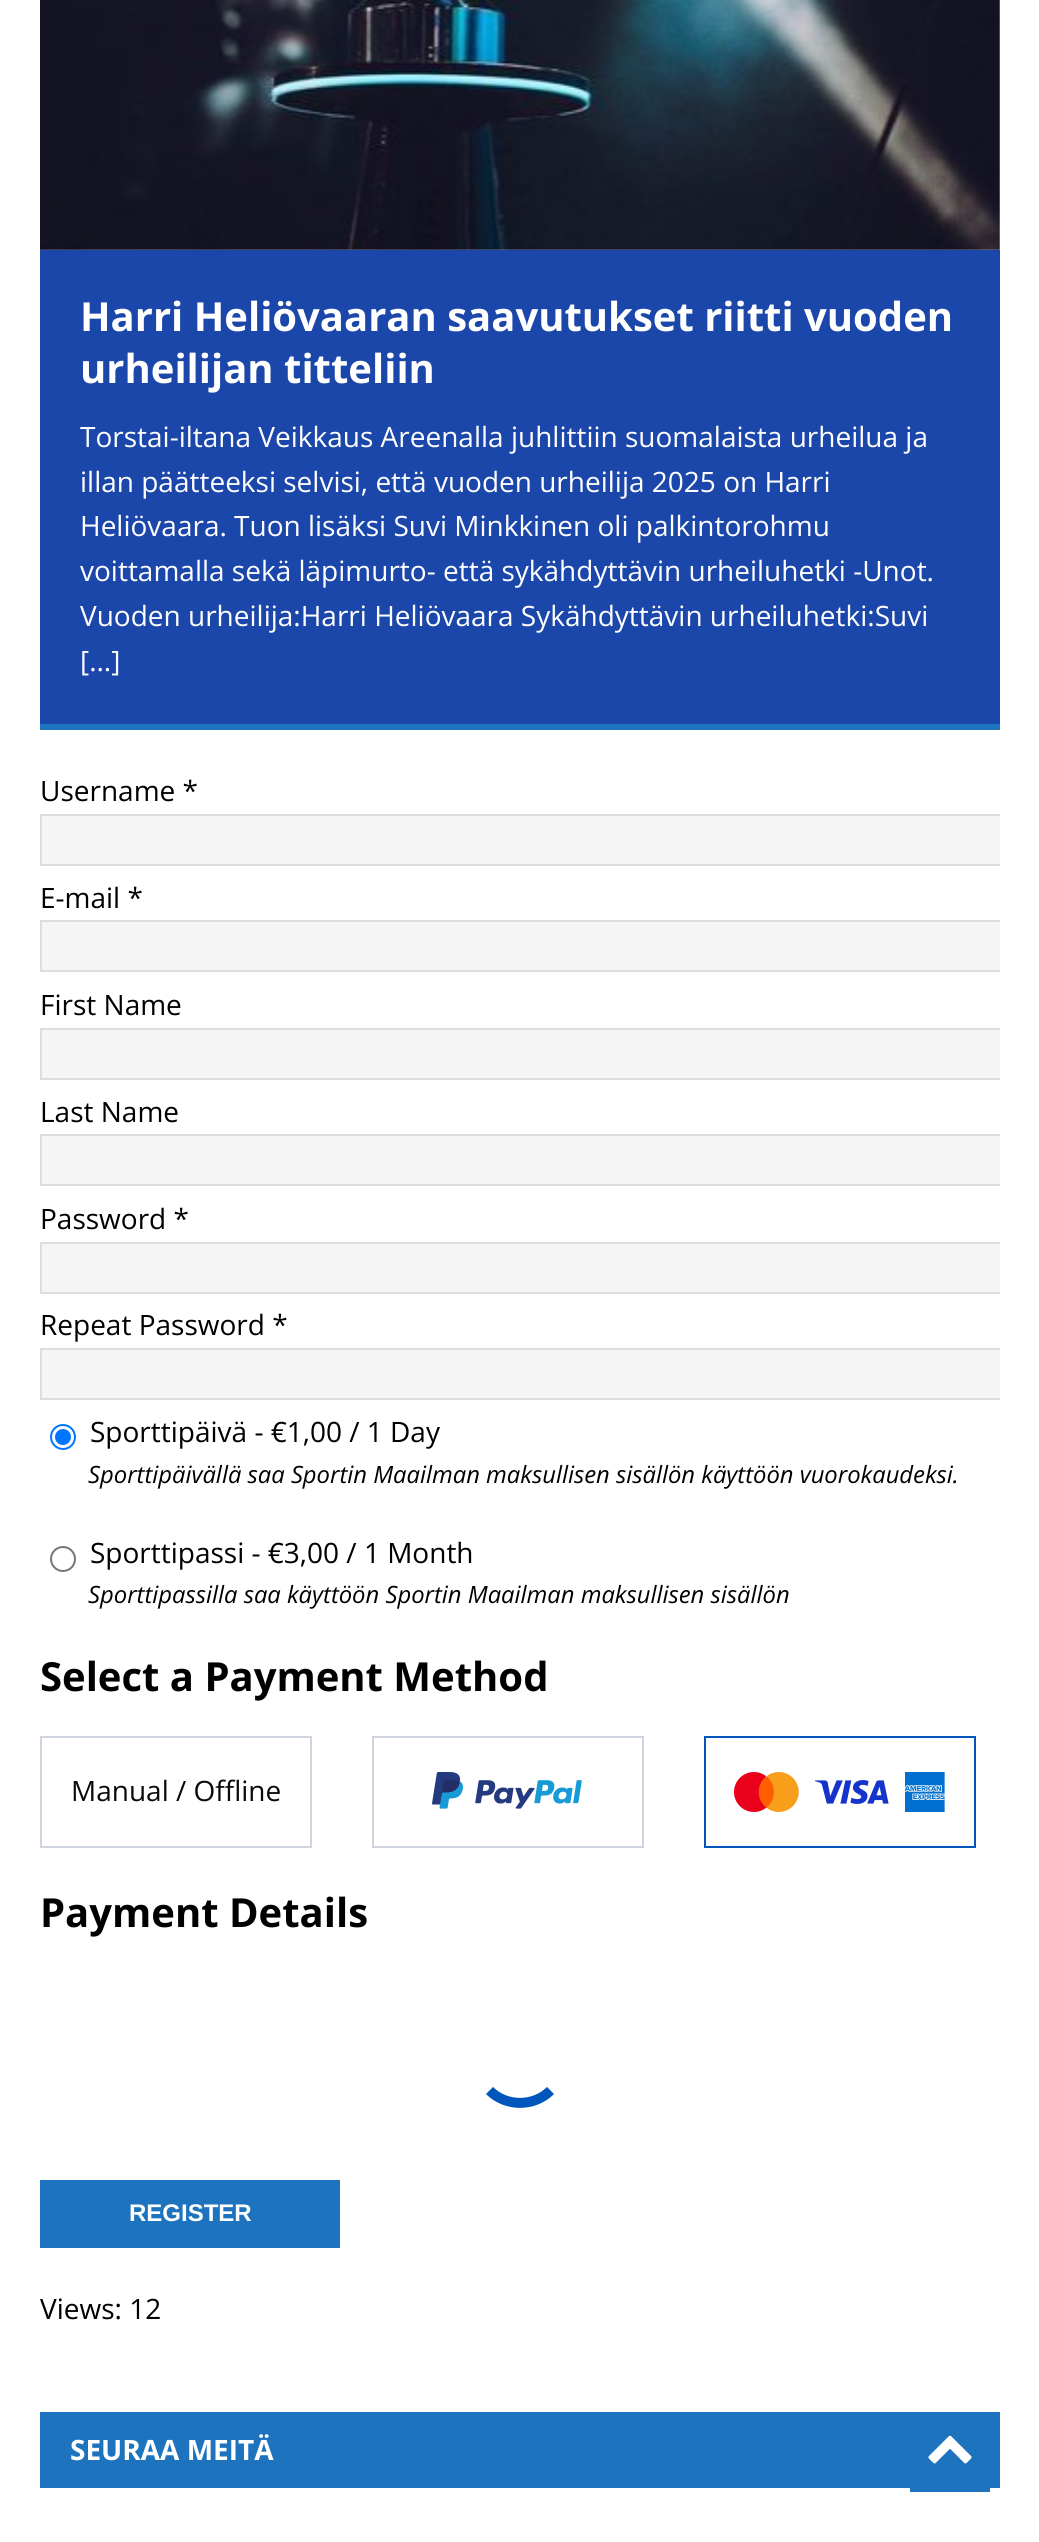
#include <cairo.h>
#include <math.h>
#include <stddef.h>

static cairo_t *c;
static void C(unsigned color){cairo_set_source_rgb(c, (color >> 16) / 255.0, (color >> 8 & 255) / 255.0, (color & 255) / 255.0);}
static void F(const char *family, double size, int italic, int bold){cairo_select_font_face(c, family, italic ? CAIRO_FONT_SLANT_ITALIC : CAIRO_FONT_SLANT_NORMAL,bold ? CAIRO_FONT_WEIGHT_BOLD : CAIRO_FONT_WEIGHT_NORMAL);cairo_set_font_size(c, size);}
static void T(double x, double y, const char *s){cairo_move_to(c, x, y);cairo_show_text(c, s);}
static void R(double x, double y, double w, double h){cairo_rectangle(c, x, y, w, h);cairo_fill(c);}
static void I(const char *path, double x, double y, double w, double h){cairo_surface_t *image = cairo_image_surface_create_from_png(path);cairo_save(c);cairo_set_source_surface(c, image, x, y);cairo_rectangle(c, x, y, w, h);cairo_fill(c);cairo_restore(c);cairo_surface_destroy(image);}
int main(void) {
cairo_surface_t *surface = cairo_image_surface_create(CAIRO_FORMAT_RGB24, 1039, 2542);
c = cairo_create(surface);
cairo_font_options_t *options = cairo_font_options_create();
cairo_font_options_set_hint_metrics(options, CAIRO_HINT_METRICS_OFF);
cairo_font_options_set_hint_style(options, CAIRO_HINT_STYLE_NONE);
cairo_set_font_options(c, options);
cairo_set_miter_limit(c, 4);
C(0xffffff);
cairo_paint(c);
I("1.png",40,0,960,250);
C(0x1b46aa);
R(40,250,960,474);
C(0x1e73be);
R(40,724,960,6);
F("Open Sans",40,0,1);
C(0xffffff);
T(80,331,"Harri Heliövaaran saavutukset riitti vuoden");
T(80,383,"urheilijan titteliin");
F("Open Sans",28,0,0);
T(80,447,"Torstai-iltana Veikkaus Areenalla juhlittiin suomalaista urheilua ja");
T(80,492,"illan päätteeksi selvisi, että vuoden urheilija 2025 on Harri");
T(80,536,"Heliövaara. Tuon lisäksi Suvi Minkkinen oli palkintorohmu");
T(80,581,"voittamalla sekä läpimurto- että sykähdyttävin urheiluhetki -Unot.");
T(80,626,"Vuoden urheilija:Harri Heliövaara Sykähdyttävin urheiluhetki:Suvi");
T(80,671,"[...]");
C(0x000000);
T(40,801,"Username *");
C(0xf5f5f5);
R(42,816,958,48);
cairo_save(c);
cairo_rectangle(c,40,0,960,2372);
cairo_clip(c);
cairo_rectangle(c,41,815,982,50);
C(0xdddddd);
cairo_stroke(c);
cairo_restore(c);
C(0x000000);
T(40,908,"E-mail *");
C(0xf5f5f5);
R(42,922,958,48);
cairo_save(c);
cairo_rectangle(c,40,0,960,2372);
cairo_clip(c);
cairo_rectangle(c,41,921,982,50);
C(0xdddddd);
cairo_stroke(c);
cairo_restore(c);
C(0x000000);
T(40,1015,"First Name");
C(0xf5f5f5);
R(42,1030,958,48);
cairo_save(c);
cairo_rectangle(c,40,0,960,2372);
cairo_clip(c);
cairo_rectangle(c,41,1029,982,50);
C(0xdddddd);
cairo_stroke(c);
cairo_restore(c);
C(0x000000);
T(40,1122,"Last Name");
C(0xf5f5f5);
R(42,1136,958,48);
cairo_save(c);
cairo_rectangle(c,40,0,960,2372);
cairo_clip(c);
cairo_rectangle(c,41,1135,982,50);
C(0xdddddd);
cairo_stroke(c);
cairo_restore(c);
C(0x000000);
T(40,1229,"Password *");
C(0xf5f5f5);
R(42,1244,958,48);
cairo_save(c);
cairo_rectangle(c,40,0,960,2372);
cairo_clip(c);
cairo_rectangle(c,41,1243,982,50);
C(0xdddddd);
cairo_stroke(c);
cairo_restore(c);
C(0x000000);
T(40,1335,"Repeat Password *");
C(0xf5f5f5);
R(42,1350,958,48);
cairo_save(c);
cairo_rectangle(c,40,0,960,2372);
cairo_clip(c);
cairo_rectangle(c,41,1349,982,50);
C(0xdddddd);
cairo_stroke(c);
cairo_restore(c);
cairo_arc(c,63,1437,12,0,2 * M_PI);
C(0x0075ff);
cairo_stroke(c);
cairo_arc(c,63,1437,8,0,2 * M_PI);
cairo_fill(c);
C(0x000000);
T(90,1442,"Sporttipäivä - €1,00 / 1 Day");
F("Open Sans",23.8,1,0);
T(88,1483,"Sporttipäivällä saa Sportin Maailman maksullisen sisällön käyttöön vuorokaudeksi.");
cairo_new_path(c);
cairo_arc(c,63,1559,12,0,2 * M_PI);
C(0x767676);
cairo_stroke(c);
F("Open Sans",28,0,0);
C(0x000000);
T(90,1563,"Sporttipassi - €3,00 / 1 Month");
F("Open Sans",23.8,1,0);
T(88,1603,"Sporttipassilla saa käyttöön Sportin Maailman maksullisen sisällön");
F("Open Sans",40,0,1);
T(40,1691,"Select a Payment Method");
cairo_rectangle(c,41,1737,270,110);
C(0xcfd4de);
cairo_stroke(c);
F("Open Sans",28,0,0);
C(0x090a0b);
T(71,1801,"Manual / Offline");
I("2.png",432,1772,150,37);
cairo_rectangle(c,373,1737,270,110);
C(0xcfd4de);
cairo_stroke(c);
I("3.png",734,1772,211,40);
cairo_rectangle(c,705,1737,270,110);
C(0x0056ba);
cairo_stroke(c);
F("Open Sans",40,0,1);
C(0x000000);
T(40,1927,"Payment Details");
cairo_new_path(c);
cairo_move_to(c,550.5,2090.5);
cairo_curve_to(c,534,2107,506,2107,489.5,2090.5);
C(0x0056ba);
cairo_set_line_width(c,10);
cairo_stroke(c);
C(0x1e73be);
R(40,2180,300,68);
F("Liberation Sans",24,0,1);
C(0xffffff);
T(129,2221,"REGISTER");
F("Open Sans",28,0,0);
C(0x000000);
T(40,2319,"Views: 12");
C(0x1e73be);
R(40,2412,960,76);
F("Open Sans",28,0,1);
C(0xffffff);
T(70,2460,"SEURAA MEITÄ");
C(0x1e73be);
R(910,2488,80,4);
I("4.png",928,2435,44,29);
cairo_surface_write_to_png(surface, "o.png");
cairo_font_options_destroy(options);
cairo_destroy(c);
cairo_surface_destroy(surface);
return 0;
}
